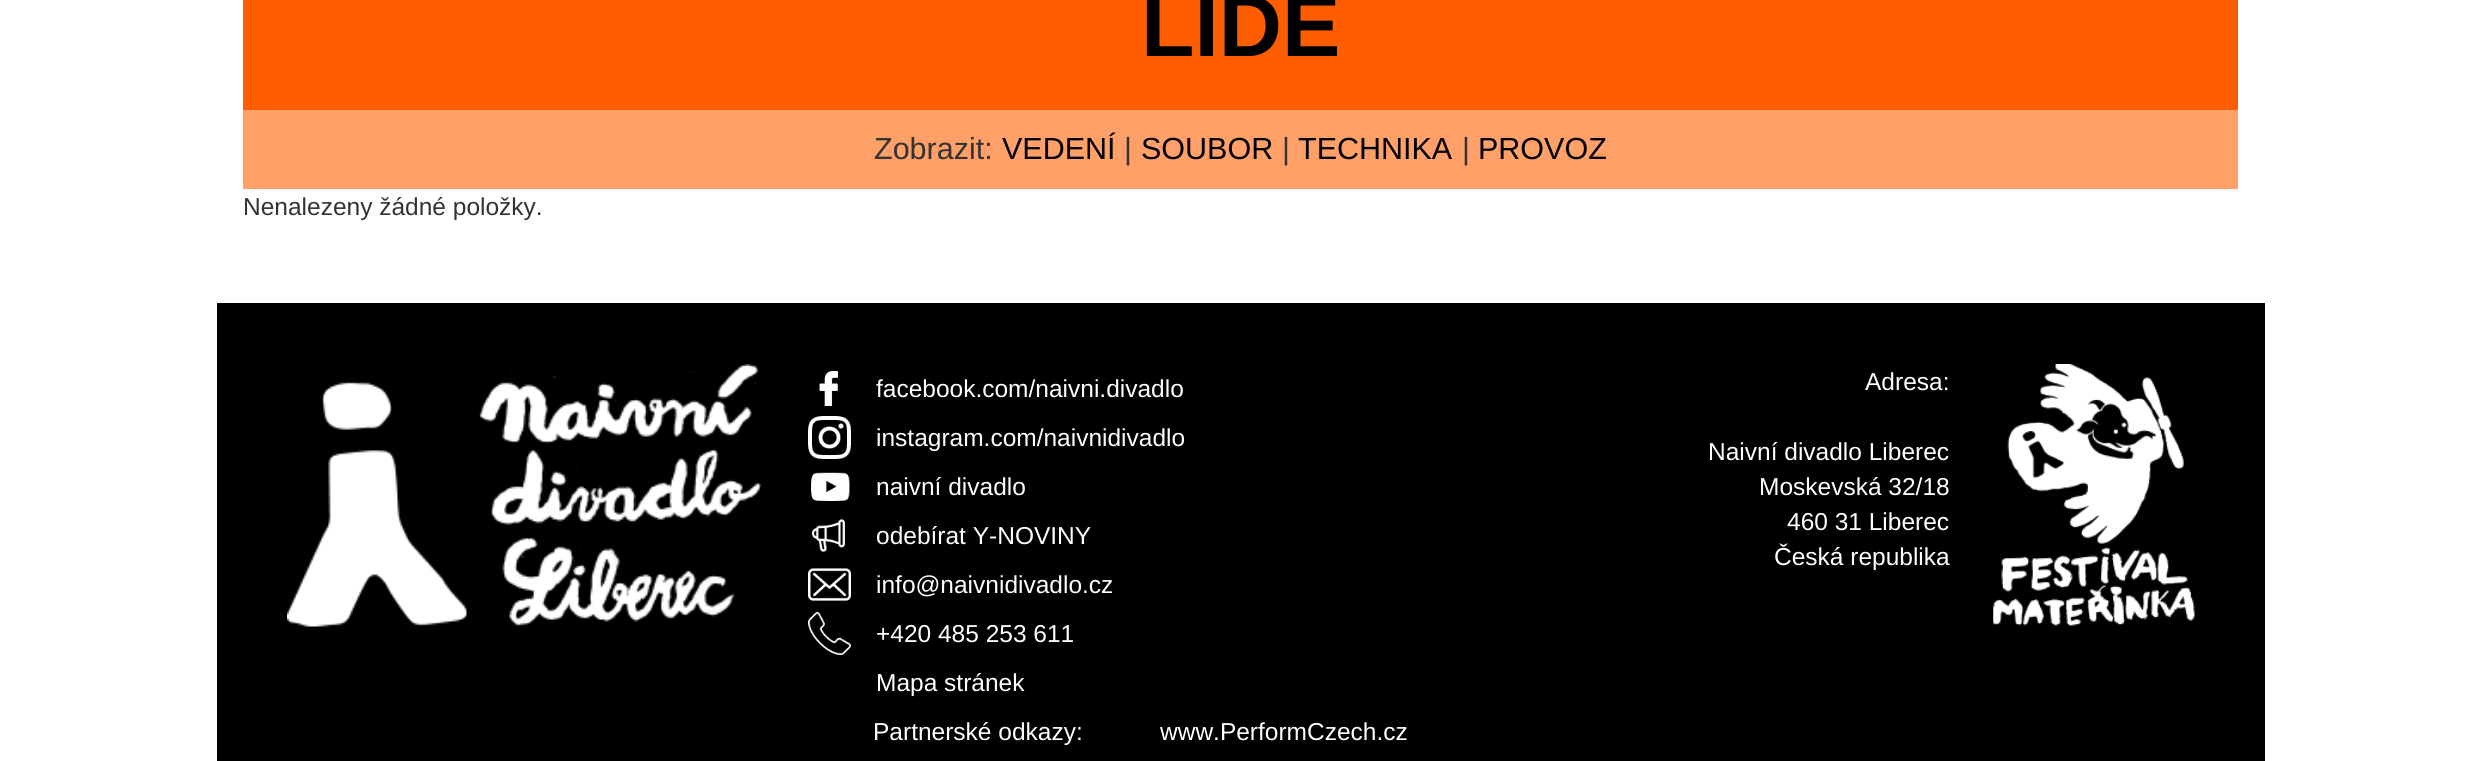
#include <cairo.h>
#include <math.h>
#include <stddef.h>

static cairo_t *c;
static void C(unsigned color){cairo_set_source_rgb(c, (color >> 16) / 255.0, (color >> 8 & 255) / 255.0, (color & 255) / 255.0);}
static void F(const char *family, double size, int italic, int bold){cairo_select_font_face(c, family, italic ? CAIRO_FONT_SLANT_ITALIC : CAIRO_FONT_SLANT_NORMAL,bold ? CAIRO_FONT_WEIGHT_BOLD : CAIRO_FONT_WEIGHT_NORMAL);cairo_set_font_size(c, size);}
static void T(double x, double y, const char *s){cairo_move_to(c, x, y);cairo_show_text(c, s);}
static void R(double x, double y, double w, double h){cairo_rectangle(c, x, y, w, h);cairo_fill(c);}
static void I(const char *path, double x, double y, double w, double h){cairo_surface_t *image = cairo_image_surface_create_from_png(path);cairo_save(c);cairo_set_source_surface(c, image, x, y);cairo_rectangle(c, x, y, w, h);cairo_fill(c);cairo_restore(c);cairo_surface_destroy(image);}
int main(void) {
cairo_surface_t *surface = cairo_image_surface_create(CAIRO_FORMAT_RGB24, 2481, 761);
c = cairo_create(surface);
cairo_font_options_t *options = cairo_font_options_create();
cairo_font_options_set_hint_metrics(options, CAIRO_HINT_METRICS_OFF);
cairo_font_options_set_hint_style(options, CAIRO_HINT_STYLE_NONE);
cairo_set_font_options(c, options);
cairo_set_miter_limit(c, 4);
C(0xffffff);
cairo_paint(c);
C(0xfe5e00);
R(243,0,1995,110);
F("Liberation Sans",87.5,0,1);
C(0x000000);
T(1141,56,"LIDÉ");
C(0xffa068);
R(243,110,1995,79);
F("Liberation Sans",30.5,0,0);
C(0x333333);
T(874,159,"Zobrazit:");
C(0x000000);
T(1002,159,"VEDENÍ");
C(0x333333);
T(1124,159,"|");
C(0x000000);
T(1141,159,"SOUBOR");
C(0x333333);
T(1282,159,"|");
C(0x000000);
T(1298,159,"TECHNIKA");
C(0x333333);
T(1462,159,"|");
C(0x000000);
T(1478,159,"PROVOZ");
F("Liberation Sans",24.5,0,0);
C(0x333333);
T(243,215,"Nenalezeny žádné položky.");
C(0x000000);
R(217,303,2048,458);
I("1.png",287,364,475,263);
I("2.png",819,371,19,35);
C(0xffffff);
T(876,397,"facebook.com/naivni.divadlo");
I("3.png",808,416,43,43);
T(876,446,"instagram.com/naivnidivadlo");
I("4.png",811,472,39,29);
T(876,495,"naivní divadlo");
I("5.png",812,519,33,33);
T(876,544,"odebírat Y-NOVINY");
I("6.png",808,568,43,33);
T(876,593,"info@naivnidivadlo.cz");
I("7.png",808,612,43,43);
T(876,642,"+420 485 253 611");
T(876,691,"Mapa stránek");
T(873,740,"Partnerské odkazy:");
T(1160,740,"www.PerformCzech.cz");
T(1865,390,"Adresa:");
I("8.png",1993,364,202,262);
T(1708,460,"Naivní divadlo Liberec");
T(1759,495,"Moskevská 32/18");
T(1787,530,"460 31 Liberec");
T(1774,565,"Česká republika");
cairo_surface_write_to_png(surface, "o.png");
cairo_font_options_destroy(options);
cairo_destroy(c);
cairo_surface_destroy(surface);
return 0;
}
